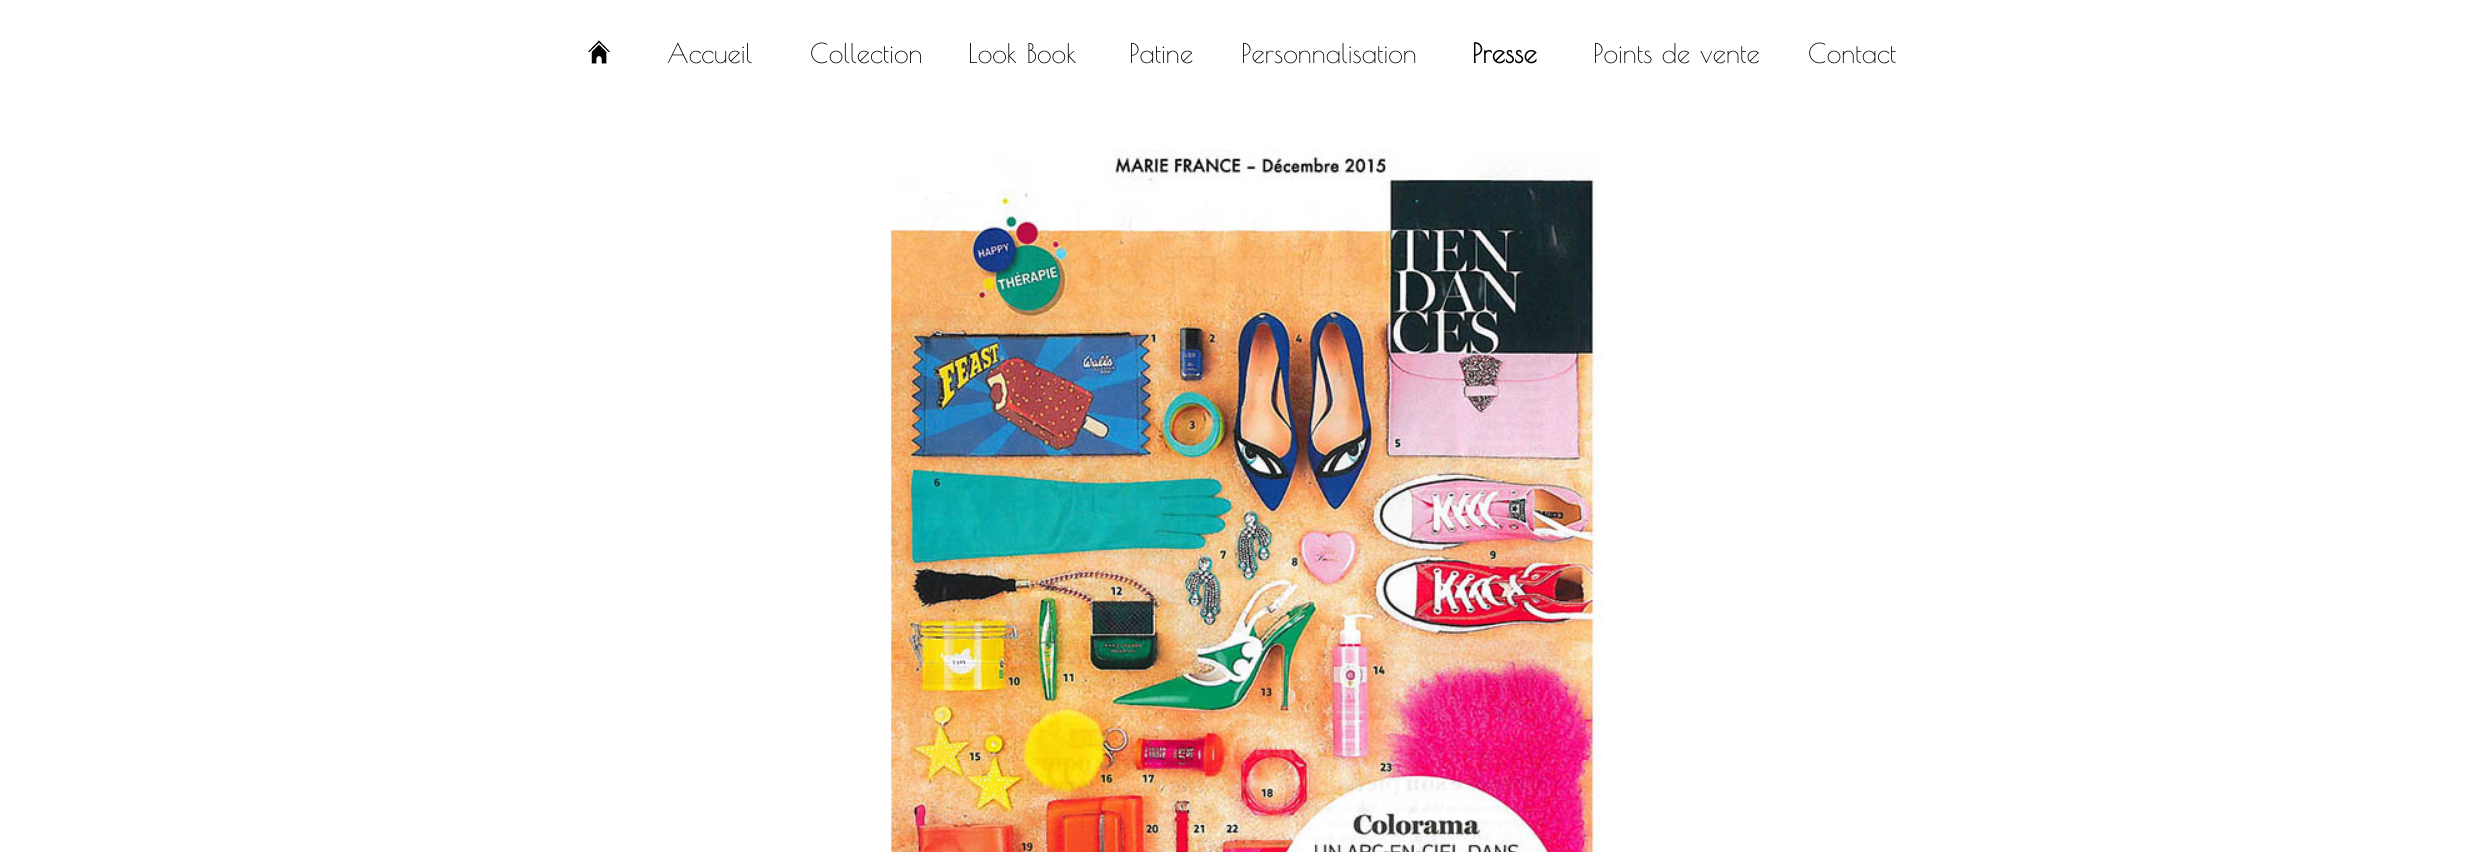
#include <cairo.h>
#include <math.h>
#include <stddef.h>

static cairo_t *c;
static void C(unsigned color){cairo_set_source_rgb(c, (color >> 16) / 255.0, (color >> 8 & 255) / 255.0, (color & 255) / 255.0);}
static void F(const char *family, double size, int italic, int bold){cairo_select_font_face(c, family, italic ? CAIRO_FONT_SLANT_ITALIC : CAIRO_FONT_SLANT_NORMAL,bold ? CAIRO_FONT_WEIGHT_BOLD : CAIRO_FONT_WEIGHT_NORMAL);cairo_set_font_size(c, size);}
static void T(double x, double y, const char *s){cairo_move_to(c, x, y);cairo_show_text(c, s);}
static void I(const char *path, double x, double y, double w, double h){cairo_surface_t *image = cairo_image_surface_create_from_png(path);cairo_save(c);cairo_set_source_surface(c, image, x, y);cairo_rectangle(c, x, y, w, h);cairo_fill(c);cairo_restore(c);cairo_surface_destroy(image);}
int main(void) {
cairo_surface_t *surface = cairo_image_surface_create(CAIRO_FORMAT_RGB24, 2492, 852);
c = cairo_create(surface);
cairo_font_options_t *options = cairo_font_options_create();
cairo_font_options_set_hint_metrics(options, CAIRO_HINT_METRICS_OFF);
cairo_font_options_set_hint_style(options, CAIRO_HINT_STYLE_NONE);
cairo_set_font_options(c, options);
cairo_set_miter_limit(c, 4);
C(0xffffff);
cairo_paint(c);
I("1.png",588,40,22,24);
F("Poiret One",26.75,0,0);
C(0x000000);
T(667,63,"Accueil");
T(810,63,"Collection");
T(968,63,"Look Book");
T(1129,63,"Patine");
T(1241,63,"Personnalisation");
F("Poiret One",26.75,0,1);
T(1472,63,"Presse");
F("Poiret One",26.75,0,0);
T(1593,63,"Points de vente");
T(1808,63,"Contact");
I("2.png",891,150,711,702);
cairo_surface_write_to_png(surface, "o.png");
cairo_font_options_destroy(options);
cairo_destroy(c);
cairo_surface_destroy(surface);
return 0;
}
